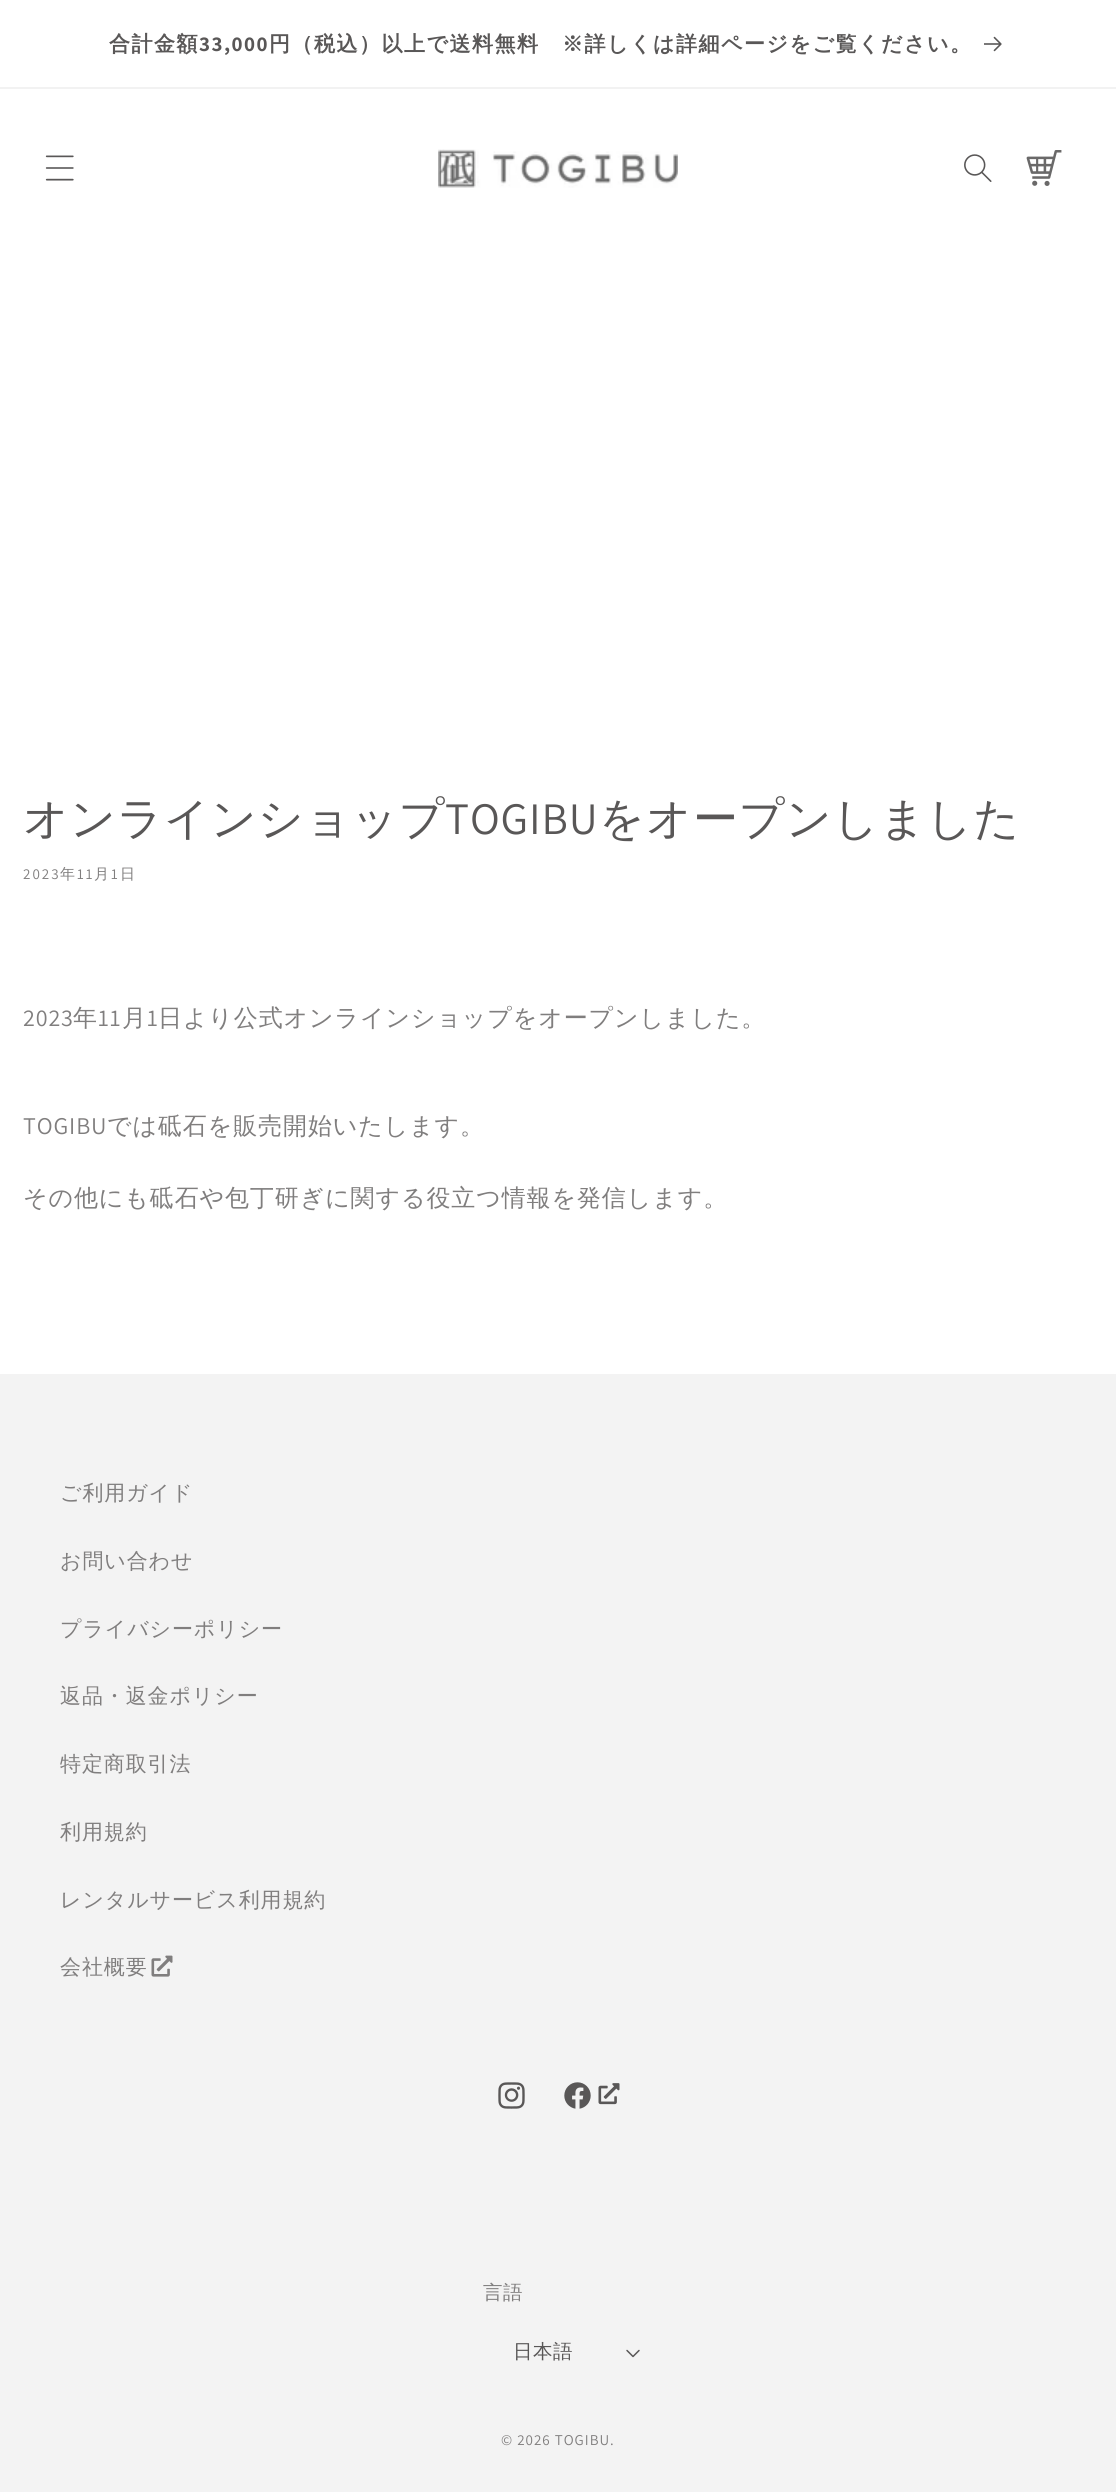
#include <cairo.h>
#include <math.h>
#include <stddef.h>

static cairo_t *c;
static void C(unsigned color){cairo_set_source_rgb(c, (color >> 16) / 255.0, (color >> 8 & 255) / 255.0, (color & 255) / 255.0);}
static void F(const char *family, double size, int italic, int bold){cairo_select_font_face(c, family, italic ? CAIRO_FONT_SLANT_ITALIC : CAIRO_FONT_SLANT_NORMAL,bold ? CAIRO_FONT_WEIGHT_BOLD : CAIRO_FONT_WEIGHT_NORMAL);cairo_set_font_size(c, size);}
static void L(double x, double y, const char *s, double letter, double word){cairo_move_to(c, x, y);while (*s) {char ch[5] = {0};int n = 0;do ch[n++] = *s++; while ((*s & 0xC0) == 0x80);cairo_show_text(c, ch);cairo_rel_move_to(c, letter + word * (*ch == ' '), 0);}}
static void R(double x, double y, double w, double h){cairo_rectangle(c, x, y, w, h);cairo_fill(c);}
static void I(const char *path, double x, double y, double w, double h){cairo_surface_t *image = cairo_image_surface_create_from_png(path);cairo_save(c);cairo_set_source_surface(c, image, x, y);cairo_rectangle(c, x, y, w, h);cairo_fill(c);cairo_restore(c);cairo_surface_destroy(image);}
int main(void) {
cairo_surface_t *surface = cairo_image_surface_create(CAIRO_FORMAT_RGB24, 1116, 2492);
c = cairo_create(surface);
cairo_font_options_t *options = cairo_font_options_create();
cairo_font_options_set_hint_metrics(options, CAIRO_HINT_METRICS_OFF);
cairo_font_options_set_hint_style(options, CAIRO_HINT_STYLE_NONE);
cairo_set_font_options(c, options);
cairo_set_miter_limit(c, 4);
C(0xffffff);
cairo_paint(c);
C(0xf2f2f2);
R(0,87,1116,2);
F("WenQuanYi Zen Hei",21,0,1);
C(0x595757);
L(109,51,"合計金額",1.5,0);
F("Assistant",21,0,1);
L(199,51,"33,000",1.5,0);
F("WenQuanYi Zen Hei",21,0,1);
L(269,51,"円（税込）以上で送料無料　※詳しくは詳細ページをご覧ください。",1.5,0);
I("1.png",984,36,18,16);
I("2.png",45,155,29,26);
I("3.png",438,149,240,39);
I("4.png",964,154,28,28);
I("5.png",1026,150,36,36);
F("WenQuanYi Zen Hei Medium",45,0,0);
L(23,834,"オンラインショップ",.9,0);
F("Assistant",45,0,0);
L(445,834,"TOGIBU",.9,0);
F("WenQuanYi Zen Hei Medium",45,0,0);
L(599,834,"をオープンしました",.9,0);
F("Assistant",15,0,0);
C(0x807e7e);
L(23,879,"2023",2,0);
F("WenQuanYi Zen Hei Medium",15,0,0);
L(60,879,"年",2,0);
F("Assistant",15,0,0);
L(77,879,"11",2,0);
F("WenQuanYi Zen Hei Medium",15,0,0);
L(94,879,"月",2,0);
F("Assistant",15,0,0);
L(111,879,"1",2,0);
F("WenQuanYi Zen Hei Medium",15,0,0);
L(120,879,"日",2,0);
F("Assistant",24,0,0);
L(23,1026,"2023",.9,0);
F("WenQuanYi Zen Hei Medium",24,0,0);
L(73,1026,"年",.9,0);
F("Assistant",24,0,0);
L(98,1026,"11",.9,0);
F("WenQuanYi Zen Hei Medium",24,0,0);
L(122,1026,"月",.9,0);
F("Assistant",24,0,0);
L(147,1026,"1",.9,0);
F("WenQuanYi Zen Hei Medium",24,0,0);
L(158,1026,"日より公式オンラインショップをオープンしました。",.9,0);
F("Assistant",24,0,0);
L(23,1134,"TOGIBU",.9,0);
F("WenQuanYi Zen Hei Medium",24,0,0);
L(107,1134,"では砥石を販売開始いたします。",.9,0);
L(23,1206,"その他にも砥石や包丁研ぎに関する役立つ情報を発信します。",.9,0);
C(0xf3f3f3);
R(0,1374,1116,1118);
F("WenQuanYi Zen Hei Medium",21,0,0);
C(0x807e7e);
L(60,1500,"ご利用ガイド",.9,0);
L(60,1568,"お問い合わせ",.9,0);
L(60,1636,"プライバシーポリシー",.9,0);
L(60,1703,"返品・返金ポリシー",.9,0);
L(60,1771,"特定商取引法",.9,0);
L(60,1839,"利用規約",.9,0);
L(60,1907,"レンタルサービス利用規約",.9,0);
L(60,1974,"会社概要",.9,0);
I("6.png",151,1955,22,22);
I("7.png",498,2082,27,27);
I("8.png",564,2082,27,27);
I("9.png",598,2083,22,22);
F("WenQuanYi Zen Hei Medium",19.5,0,0);
L(483,2299,"言語",.5,0);
C(0x595757);
L(513,2358,"日本語",.5,0);
I("10.png",626,2349,14,9);
F("Assistant",15,0,0);
C(0x807e7e);
L(501,2445,"© 2026 TOGIBU.",1,0);
cairo_surface_write_to_png(surface, "o.png");
cairo_font_options_destroy(options);
cairo_destroy(c);
cairo_surface_destroy(surface);
return 0;
}
